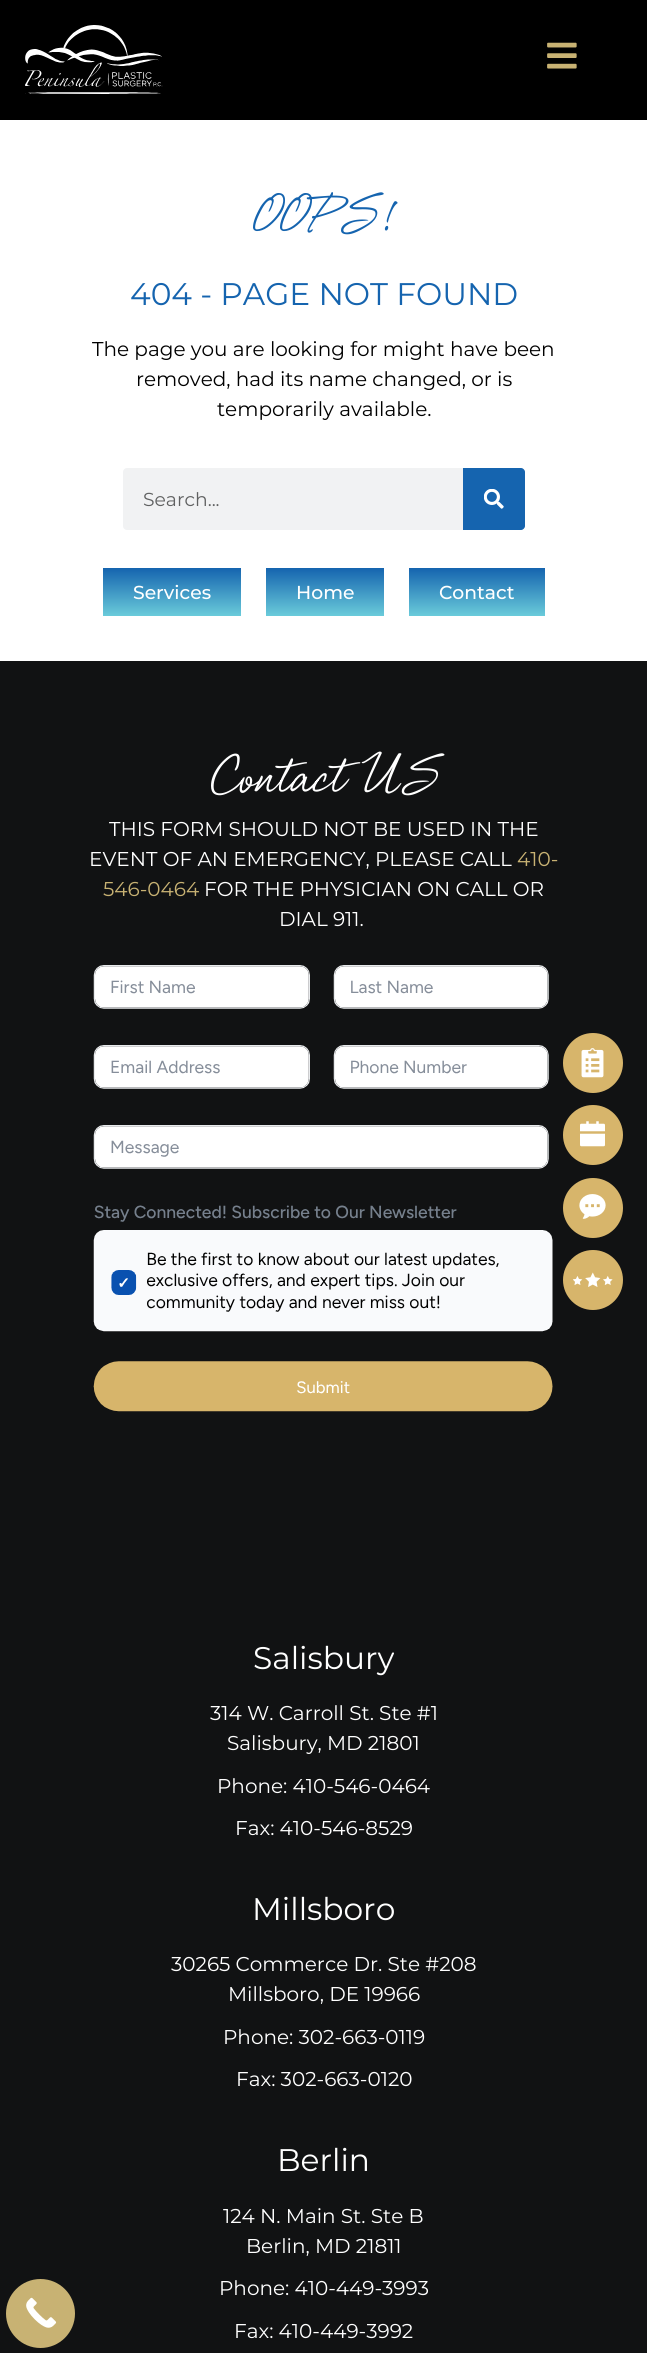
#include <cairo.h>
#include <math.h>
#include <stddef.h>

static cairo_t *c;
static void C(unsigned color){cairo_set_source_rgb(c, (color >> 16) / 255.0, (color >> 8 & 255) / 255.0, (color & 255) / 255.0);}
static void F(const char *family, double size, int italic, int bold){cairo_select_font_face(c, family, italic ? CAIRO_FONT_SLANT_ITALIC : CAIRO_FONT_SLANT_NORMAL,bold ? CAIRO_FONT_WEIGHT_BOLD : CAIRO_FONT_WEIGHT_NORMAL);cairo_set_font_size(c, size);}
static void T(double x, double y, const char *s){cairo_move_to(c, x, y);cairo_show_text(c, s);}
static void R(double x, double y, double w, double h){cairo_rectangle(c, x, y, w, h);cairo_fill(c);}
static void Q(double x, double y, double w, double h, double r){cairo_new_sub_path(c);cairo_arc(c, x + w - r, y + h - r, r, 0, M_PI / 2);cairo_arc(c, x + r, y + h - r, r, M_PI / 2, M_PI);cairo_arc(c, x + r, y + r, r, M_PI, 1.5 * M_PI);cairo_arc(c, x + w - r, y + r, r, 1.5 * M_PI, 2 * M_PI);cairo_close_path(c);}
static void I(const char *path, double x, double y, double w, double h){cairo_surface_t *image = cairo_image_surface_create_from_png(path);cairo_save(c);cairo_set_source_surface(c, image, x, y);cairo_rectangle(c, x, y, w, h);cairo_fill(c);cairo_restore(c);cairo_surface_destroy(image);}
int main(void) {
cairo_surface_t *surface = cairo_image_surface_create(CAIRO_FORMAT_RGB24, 647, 2353);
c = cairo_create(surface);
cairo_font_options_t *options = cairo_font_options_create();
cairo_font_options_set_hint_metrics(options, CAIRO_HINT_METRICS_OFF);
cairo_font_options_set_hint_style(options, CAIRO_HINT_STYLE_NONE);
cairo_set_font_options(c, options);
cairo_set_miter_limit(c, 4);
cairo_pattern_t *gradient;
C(0xffffff);
cairo_paint(c);
C(0x000000);
R(0,0,647,120);
I("1.png",25,25,138,69);
I("2.png",547,42,30,27);
F("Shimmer",69,0,0);
C(0x1564af);
T(253,231,"OOPS!");
F("Montserrat",31.25,0,0);
T(130,305,"404 - PAGE NOT FOUND");
F("Montserrat",20,0,0);
C(0x000000);
T(92,356,"The page you are looking for might have been");
T(136,386,"removed, had its name changed, or is");
T(217,416,"temporarily available.");
C(0xf1f2f3);
Q(123,468,402,62,4);
cairo_fill(c);
F("Montserrat",18.75,0,0);
C(0x606161);
T(143,506,"Search...");
C(0x1564af);
cairo_new_path(c);
cairo_move_to(c,463,468);
cairo_line_to(c,521,468);
cairo_curve_to(c,523,468,525,470,525,472);
cairo_line_to(c,525,526);
cairo_curve_to(c,525,528,523,530,521,530);
cairo_line_to(c,463,530);
cairo_close_path(c);
cairo_fill(c);
I("3.png",484,489,20,20);
gradient = cairo_pattern_create_linear(172,568,172,616);
cairo_pattern_add_color_stop_rgba(gradient,0,0.082,0.392,0.686,1);
cairo_pattern_add_color_stop_rgba(gradient,1,0.416,0.796,0.855,1);
cairo_set_source(c,gradient);
cairo_pattern_destroy(gradient);
R(103,568,138,48);
F("Montserrat Medium",18.75,0,0);
C(0xffffff);
T(133,599,"Services");
gradient = cairo_pattern_create_linear(325,568,325,616);
cairo_pattern_add_color_stop_rgba(gradient,0,0.082,0.392,0.686,1);
cairo_pattern_add_color_stop_rgba(gradient,1,0.416,0.796,0.855,1);
cairo_set_source(c,gradient);
cairo_pattern_destroy(gradient);
R(266,568,118,48);
C(0xffffff);
T(296,599,"Home");
gradient = cairo_pattern_create_linear(477,568,477,616);
cairo_pattern_add_color_stop_rgba(gradient,0,0.082,0.392,0.686,1);
cairo_pattern_add_color_stop_rgba(gradient,1,0.416,0.796,0.855,1);
cairo_set_source(c,gradient);
cairo_pattern_destroy(gradient);
R(409,568,136,48);
C(0xffffff);
T(439,599,"Contact");
C(0x111213);
R(0,661,647,1692);
F("Shimmer",69,0,0);
C(0xffffff);
T(211,792,"Contact US");
F("Montserrat",20,0,0);
T(109,836,"THIS FORM SHOULD NOT BE USED IN THE");
T(89,866,"EVENT OF AN EMERGENCY, PLEASE CALL");
C(0xc8b273);
T(517,866,"410-");
T(103,896,"546-0464");
C(0xffffff);
T(204,896,"FOR THE PHYSICIAN ON CALL OR");
T(279,926,"DIAL 911.");
I("4.png",93,965,460,447);
F("Montserrat",31.25,0,0);
T(253,1669,"Salisbury");
F("Montserrat",20,0,0);
T(210,1720,"314 W. Carroll St. Ste #1");
T(227,1750,"Salisbury, MD 21801");
T(217,1793,"Phone: 410-546-0464");
T(235,1835,"Fax: 410-546-8529");
F("Montserrat",31.25,0,0);
T(252,1920,"Millsboro");
F("Montserrat",20,0,0);
T(171,1971,"30265 Commerce Dr. Ste #208");
T(228,2001,"Millsboro, DE 19966");
T(223,2044,"Phone: 302-663-0119");
T(236,2086,"Fax: 302-663-0120");
F("Montserrat",31.25,0,0);
T(277,2171,"Berlin");
F("Montserrat",20,0,0);
T(223,2223,"124 N. Main St. Ste B");
T(246,2253,"Berlin, MD 21811");
T(219,2295,"Phone: 410-449-3993");
T(234,2338,"Fax: 410-449-3992");
C(0xd7b56b);
cairo_new_path(c);
cairo_arc(c,593,1063,30,0,2 * M_PI);
cairo_fill(c);
I("5.png",581,1048,23,30);
cairo_arc(c,593,1135,30,0,2 * M_PI);
cairo_fill(c);
I("6.png",580,1121,25,26);
cairo_arc(c,593,1208,30,0,2 * M_PI);
cairo_fill(c);
I("7.png",579,1194,27,25);
cairo_arc(c,593,1280,30,0,2 * M_PI);
cairo_fill(c);
I("8.png",573,1272,40,15);
C(0xc8b273);
cairo_arc(c,40.5,2313.5,34.5,0,2 * M_PI);
cairo_fill(c);
I("9.png",26,2297,31,31);
cairo_surface_write_to_png(surface, "o.png");
cairo_font_options_destroy(options);
cairo_destroy(c);
cairo_surface_destroy(surface);
return 0;
}
